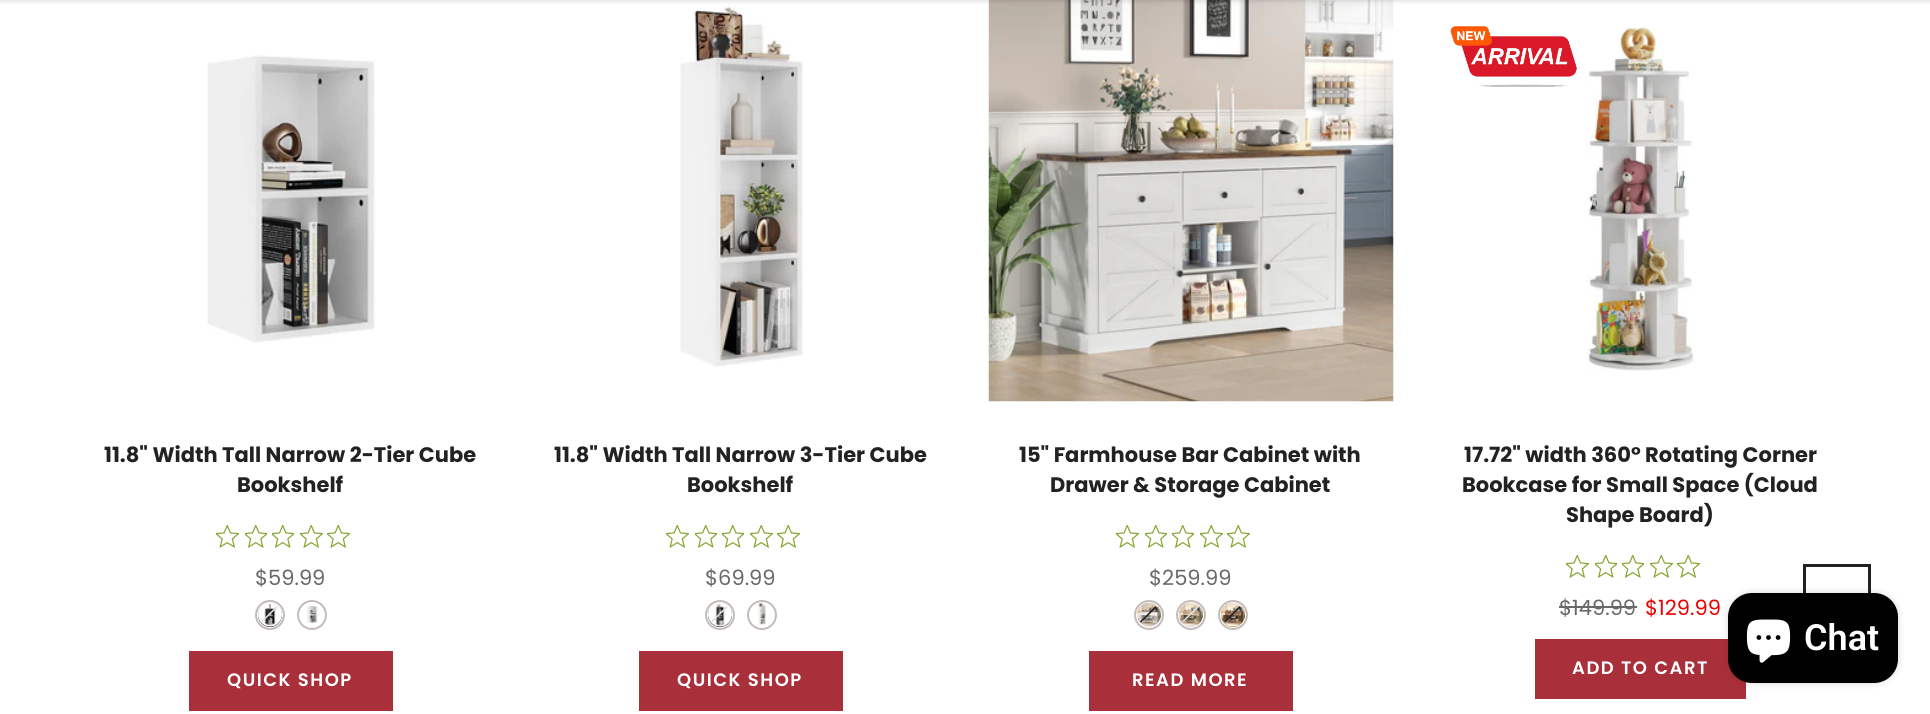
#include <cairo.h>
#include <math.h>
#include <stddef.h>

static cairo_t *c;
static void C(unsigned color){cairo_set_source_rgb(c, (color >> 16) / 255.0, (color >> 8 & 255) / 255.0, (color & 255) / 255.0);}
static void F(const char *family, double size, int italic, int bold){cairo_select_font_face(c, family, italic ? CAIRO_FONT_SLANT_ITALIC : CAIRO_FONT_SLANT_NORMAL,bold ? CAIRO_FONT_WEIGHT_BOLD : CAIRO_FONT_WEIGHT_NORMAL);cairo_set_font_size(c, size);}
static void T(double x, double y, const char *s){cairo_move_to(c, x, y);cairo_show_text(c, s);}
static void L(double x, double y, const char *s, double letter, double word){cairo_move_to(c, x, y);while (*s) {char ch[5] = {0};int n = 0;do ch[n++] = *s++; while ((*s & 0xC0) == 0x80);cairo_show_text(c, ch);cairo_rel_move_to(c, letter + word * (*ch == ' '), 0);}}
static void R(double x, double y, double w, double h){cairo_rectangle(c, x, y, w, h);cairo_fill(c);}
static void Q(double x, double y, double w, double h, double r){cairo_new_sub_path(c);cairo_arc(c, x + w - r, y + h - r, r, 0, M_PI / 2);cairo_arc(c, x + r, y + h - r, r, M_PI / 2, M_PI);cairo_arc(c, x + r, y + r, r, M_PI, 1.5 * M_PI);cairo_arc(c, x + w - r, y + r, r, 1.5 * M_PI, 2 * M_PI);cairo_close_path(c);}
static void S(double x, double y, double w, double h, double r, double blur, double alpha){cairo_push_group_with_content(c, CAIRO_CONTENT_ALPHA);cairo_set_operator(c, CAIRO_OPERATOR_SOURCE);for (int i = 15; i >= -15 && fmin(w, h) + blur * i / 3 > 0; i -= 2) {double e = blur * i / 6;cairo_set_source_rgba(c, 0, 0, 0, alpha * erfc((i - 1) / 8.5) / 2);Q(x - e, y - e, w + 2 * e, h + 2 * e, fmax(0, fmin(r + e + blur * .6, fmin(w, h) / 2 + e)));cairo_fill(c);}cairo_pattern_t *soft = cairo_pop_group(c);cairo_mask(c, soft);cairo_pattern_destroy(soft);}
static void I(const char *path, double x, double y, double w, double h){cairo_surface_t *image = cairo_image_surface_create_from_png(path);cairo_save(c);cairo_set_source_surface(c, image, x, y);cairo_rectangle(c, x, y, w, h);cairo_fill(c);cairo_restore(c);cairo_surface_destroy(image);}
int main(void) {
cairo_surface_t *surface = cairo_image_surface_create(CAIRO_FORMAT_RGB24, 1930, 714);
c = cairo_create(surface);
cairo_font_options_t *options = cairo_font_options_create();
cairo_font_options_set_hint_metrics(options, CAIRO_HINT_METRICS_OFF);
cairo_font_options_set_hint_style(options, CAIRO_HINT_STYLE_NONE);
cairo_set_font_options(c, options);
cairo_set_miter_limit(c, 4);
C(0xffffff);
cairo_paint(c);
I("6.png",680,6,123,361);
I("9.png",988,0,406,402);
C(0x000000);
S(0,-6,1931,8,0,2,.1);
I("1.png",207,55,168,288);
F("Poppins",21,0,1);
C(0x222222);
T(104,462,"11.8\" Width Tall Narrow 2-Tier Cube");
T(237,492,"Bookshelf");
I("2.png",216,525,23,23);
I("3.png",245,525,22,23);
I("3.png",272,525,22,23);
I("2.png",300,525,23,23);
I("2.png",327,525,23,23);
F("Poppins",21,0,0);
C(0x696969);
T(255,585,"$59.99");
cairo_new_path(c);
cairo_arc(c,270,615,14,0,2 * M_PI);
C(0xc4bbbb);
cairo_stroke(c);
C(0x000000);
cairo_arc(c,270,615,12,0,2 * M_PI);
cairo_fill(c);
I("4.png",258,603,24,24);
C(0xdddddd);
cairo_new_path(c);
cairo_move_to(c,277.5,607.5);
cairo_line_to(c,262,622.5);
cairo_line_to(c,261,621.5);
cairo_line_to(c,276.5,606);
cairo_close_path(c);
cairo_fill(c);
cairo_arc(c,312,615,14,0,2 * M_PI);
C(0xc4bbbb);
cairo_stroke(c);
I("5.png",307,605,11,19);
C(0xa92f3a);
R(189,651,204,60);
F("Poppins SemiBold",18,0,0);
C(0xffffff);
L(227,686,"QUICK SHOP",1.5,0);
F("Poppins",21,0,1);
C(0x222222);
T(554,462,"11.8\" Width Tall Narrow 3-Tier Cube");
T(687,492,"Bookshelf");
I("2.png",666,525,23,23);
I("3.png",695,525,22,23);
I("3.png",722,525,22,23);
I("2.png",750,525,23,23);
I("2.png",777,525,23,23);
F("Poppins",21,0,0);
C(0x696969);
T(705,585,"$69.99");
cairo_new_path(c);
cairo_arc(c,720,615,14,0,2 * M_PI);
C(0xc4bbbb);
cairo_stroke(c);
C(0x000000);
cairo_arc(c,720,615,12,0,2 * M_PI);
cairo_fill(c);
I("7.png",708,603,24,24);
C(0xdddddd);
cairo_new_path(c);
cairo_move_to(c,727.5,607.5);
cairo_line_to(c,712,622.5);
cairo_line_to(c,711,621.5);
cairo_line_to(c,726.5,606);
cairo_close_path(c);
cairo_fill(c);
cairo_arc(c,762,615,14,0,2 * M_PI);
C(0xc4bbbb);
cairo_stroke(c);
I("8.png",758,603,8,22);
C(0xa92f3a);
R(639,651,204,60);
F("Poppins SemiBold",18,0,0);
C(0xffffff);
L(677,686,"QUICK SHOP",1.5,0);
F("Poppins",21,0,1);
C(0x222222);
T(1019,462,"15\" Farmhouse Bar Cabinet with");
T(1050,492,"Drawer & Storage Cabinet");
I("2.png",1116,525,23,23);
I("3.png",1145,525,22,23);
I("3.png",1172,525,22,23);
I("2.png",1200,525,23,23);
I("2.png",1227,525,23,23);
F("Poppins",21,0,0);
C(0x696969);
T(1149,585,"$259.99");
cairo_new_path(c);
cairo_arc(c,1149,615,14,0,2 * M_PI);
C(0xc4bbbb);
cairo_stroke(c);
I("10.png",1137,602,24,25);
C(0x222222);
cairo_new_path(c);
cairo_move_to(c,1156.5,607.5);
cairo_line_to(c,1141,622.5);
cairo_line_to(c,1140,621.5);
cairo_line_to(c,1155.5,606);
cairo_close_path(c);
cairo_fill(c);
cairo_arc(c,1191,615,14,0,2 * M_PI);
C(0xc4bbbb);
cairo_stroke(c);
C(0xcccccc);
cairo_arc(c,1191,615,12,0,2 * M_PI);
cairo_fill(c);
I("11.png",1179,602,24,25);
C(0xdddddd);
cairo_new_path(c);
cairo_move_to(c,1198.5,607.5);
cairo_line_to(c,1183,622.5);
cairo_line_to(c,1182,621.5);
cairo_line_to(c,1197.5,606);
cairo_close_path(c);
cairo_fill(c);
cairo_arc(c,1233,615,14,0,2 * M_PI);
C(0xc4bbbb);
cairo_stroke(c);
C(0xad8111);
cairo_arc(c,1233,615,12,0,2 * M_PI);
cairo_fill(c);
I("12.png",1221,602,24,25);
C(0x222222);
cairo_new_path(c);
cairo_move_to(c,1240.5,607.5);
cairo_line_to(c,1225,622.5);
cairo_line_to(c,1224,621.5);
cairo_line_to(c,1239.5,606);
cairo_close_path(c);
cairo_fill(c);
C(0xa92f3a);
R(1089,651,204,60);
F("Poppins SemiBold",18,0,0);
C(0xffffff);
L(1132,686,"READ MORE",1.5,0);
I("13.png",1450,26,127,61);
I("14.png",1586,26,108,345);
F("Poppins",21,0,1);
C(0x222222);
T(1464,462,"17.72\" width 360° Rotating Corner");
T(1462,492,"Bookcase for Small Space (Cloud");
T(1566,522,"Shape Board)");
I("2.png",1566,555,23,23);
I("3.png",1595,555,22,23);
I("3.png",1622,555,22,23);
I("2.png",1650,555,23,23);
I("2.png",1677,555,23,23);
F("Poppins",21,0,0);
C(0x696969);
T(1559,615,"$149.99");
R(1559,606,78,2);
C(0xec0101);
T(1645,615,"$129.99");
C(0xa92f3a);
R(1535,639,211,60);
F("Poppins SemiBold",18,0,0);
C(0xffffff);
L(1572,674,"ADD TO CART",1.5,0);
cairo_rectangle(c,1804.5,565.5,65,65);
C(0x222222);
cairo_set_line_width(c,3);
cairo_stroke(c);
C(0x000000);
S(1728,593,170,90,24,4,.15);
C(0x000000);
Q(1728,593,170,90,24);
cairo_fill(c);
I("15.png",1746,619,45,44);
F("Roboto SemiBold",36,0,0);
C(0xffffff);
T(1804,650,"Chat");
cairo_surface_write_to_png(surface, "o.png");
cairo_font_options_destroy(options);
cairo_destroy(c);
cairo_surface_destroy(surface);
return 0;
}
